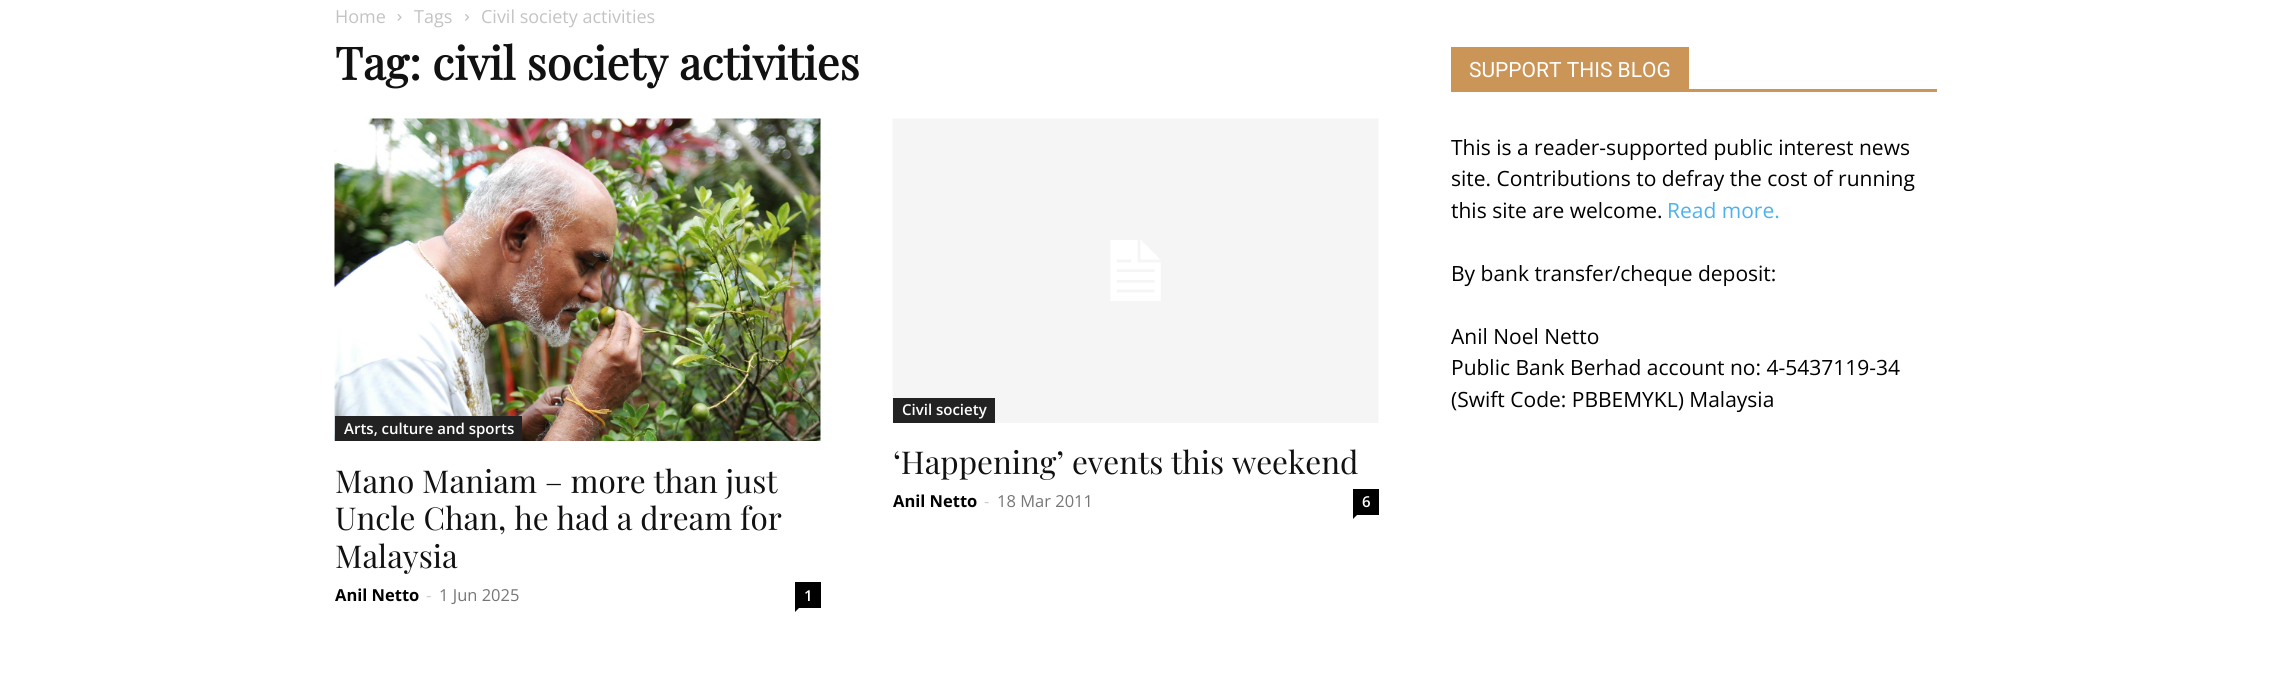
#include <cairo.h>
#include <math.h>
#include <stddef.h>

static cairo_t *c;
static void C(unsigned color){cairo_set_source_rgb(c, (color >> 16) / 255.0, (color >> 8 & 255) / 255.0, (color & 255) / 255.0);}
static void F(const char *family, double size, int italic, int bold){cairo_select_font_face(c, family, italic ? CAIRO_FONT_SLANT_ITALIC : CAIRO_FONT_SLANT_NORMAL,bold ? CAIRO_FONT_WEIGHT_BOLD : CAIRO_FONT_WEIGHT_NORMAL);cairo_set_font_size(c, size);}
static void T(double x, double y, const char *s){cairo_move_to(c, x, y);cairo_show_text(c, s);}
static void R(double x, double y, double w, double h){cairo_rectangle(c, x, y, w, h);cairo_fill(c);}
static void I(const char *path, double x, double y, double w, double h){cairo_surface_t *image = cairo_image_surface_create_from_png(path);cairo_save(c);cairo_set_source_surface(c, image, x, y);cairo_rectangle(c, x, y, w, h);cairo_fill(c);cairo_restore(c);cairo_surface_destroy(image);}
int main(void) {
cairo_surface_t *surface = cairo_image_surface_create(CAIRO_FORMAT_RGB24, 2270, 690);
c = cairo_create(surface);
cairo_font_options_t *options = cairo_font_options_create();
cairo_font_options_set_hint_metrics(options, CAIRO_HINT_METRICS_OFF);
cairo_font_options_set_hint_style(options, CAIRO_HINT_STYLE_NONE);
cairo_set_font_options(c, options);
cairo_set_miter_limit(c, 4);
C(0xffffff);
cairo_paint(c);
F("Open Sans",18,0,0);
C(0xc3c3c3);
T(335,23,"Home");
I("1.png",397,14,5,7);
T(414,23,"Tags");
I("2.png",465,14,4,7);
T(481,23,"Civil society activities");
F("Playfair Display",45,0,1);
C(0x111111);
T(335,80,"Tag: civil society activities");
I("3.png",334,118,487,323);
C(0x222222);
R(335,416,187,25);
F("Open Sans SemiBold",15,0,0);
C(0xffffff);
T(344,434,"Arts, culture and sports");
F("Playfair Display",31.5,0,0);
C(0x111111);
T(335,493,"Mano Maniam – more than just");
T(335,530,"Uncle Chan, he had a dream for");
T(335,568,"Malaysia");
F("Open Sans",16.5,0,1);
C(0x000000);
T(335,601,"Anil Netto");
F("Open Sans",16.5,0,0);
C(0xcccccc);
T(426,601,"-");
C(0x767676);
T(439,601,"1 Jun 2025");
C(0x000000);
R(795,582,26,26);
F("Open Sans SemiBold",15,0,0);
C(0xffffff);
T(804,601,"1");
C(0x000000);
cairo_new_path(c);
cairo_move_to(c,795,607.5);
cairo_line_to(c,799.5,607.5);
cairo_line_to(c,795,612);
cairo_close_path(c);
cairo_fill(c);
I("4.png",892,118,487,305);
C(0x222222);
R(893,398,102,25);
C(0xffffff);
T(902,415,"Civil society");
F("Playfair Display",31.5,0,0);
C(0x111111);
T(893,474,"‘Happening’ events this weekend");
F("Open Sans",16.5,0,1);
C(0x000000);
T(893,507,"Anil Netto");
F("Open Sans",16.5,0,0);
C(0xcccccc);
T(984,507,"-");
C(0x767676);
T(997,507,"18 Mar 2011");
C(0x000000);
R(1353,489,26,26);
F("Open Sans SemiBold",15,0,0);
C(0xffffff);
T(1362,507,"6");
C(0x000000);
cairo_new_path(c);
cairo_move_to(c,1353,514.5);
cairo_line_to(c,1357.5,514.5);
cairo_line_to(c,1353,519);
cairo_close_path(c);
cairo_fill(c);
C(0xcb9558);
R(1451,89,486,3);
R(1451,47,238,42);
F("Roboto",21,0,0);
C(0xffffff);
T(1469,77,"SUPPORT THIS BLOG");
F("Open Sans",21,0,0);
C(0x000000);
T(1451,155,"This is a reader-supported public interest news");
T(1451,186,"site. Contributions to defray the cost of running");
T(1451,218,"this site are welcome.");
C(0x4db2ec);
T(1667,218,"Read more.");
C(0x000000);
T(1451,281,"By bank transfer/cheque deposit:");
T(1451,344,"Anil Noel Netto");
T(1451,375,"Public Bank Berhad account no: 4-5437119-34");
T(1451,407,"(Swift Code: PBBEMYKL) Malaysia");
cairo_surface_write_to_png(surface, "o.png");
cairo_font_options_destroy(options);
cairo_destroy(c);
cairo_surface_destroy(surface);
return 0;
}
